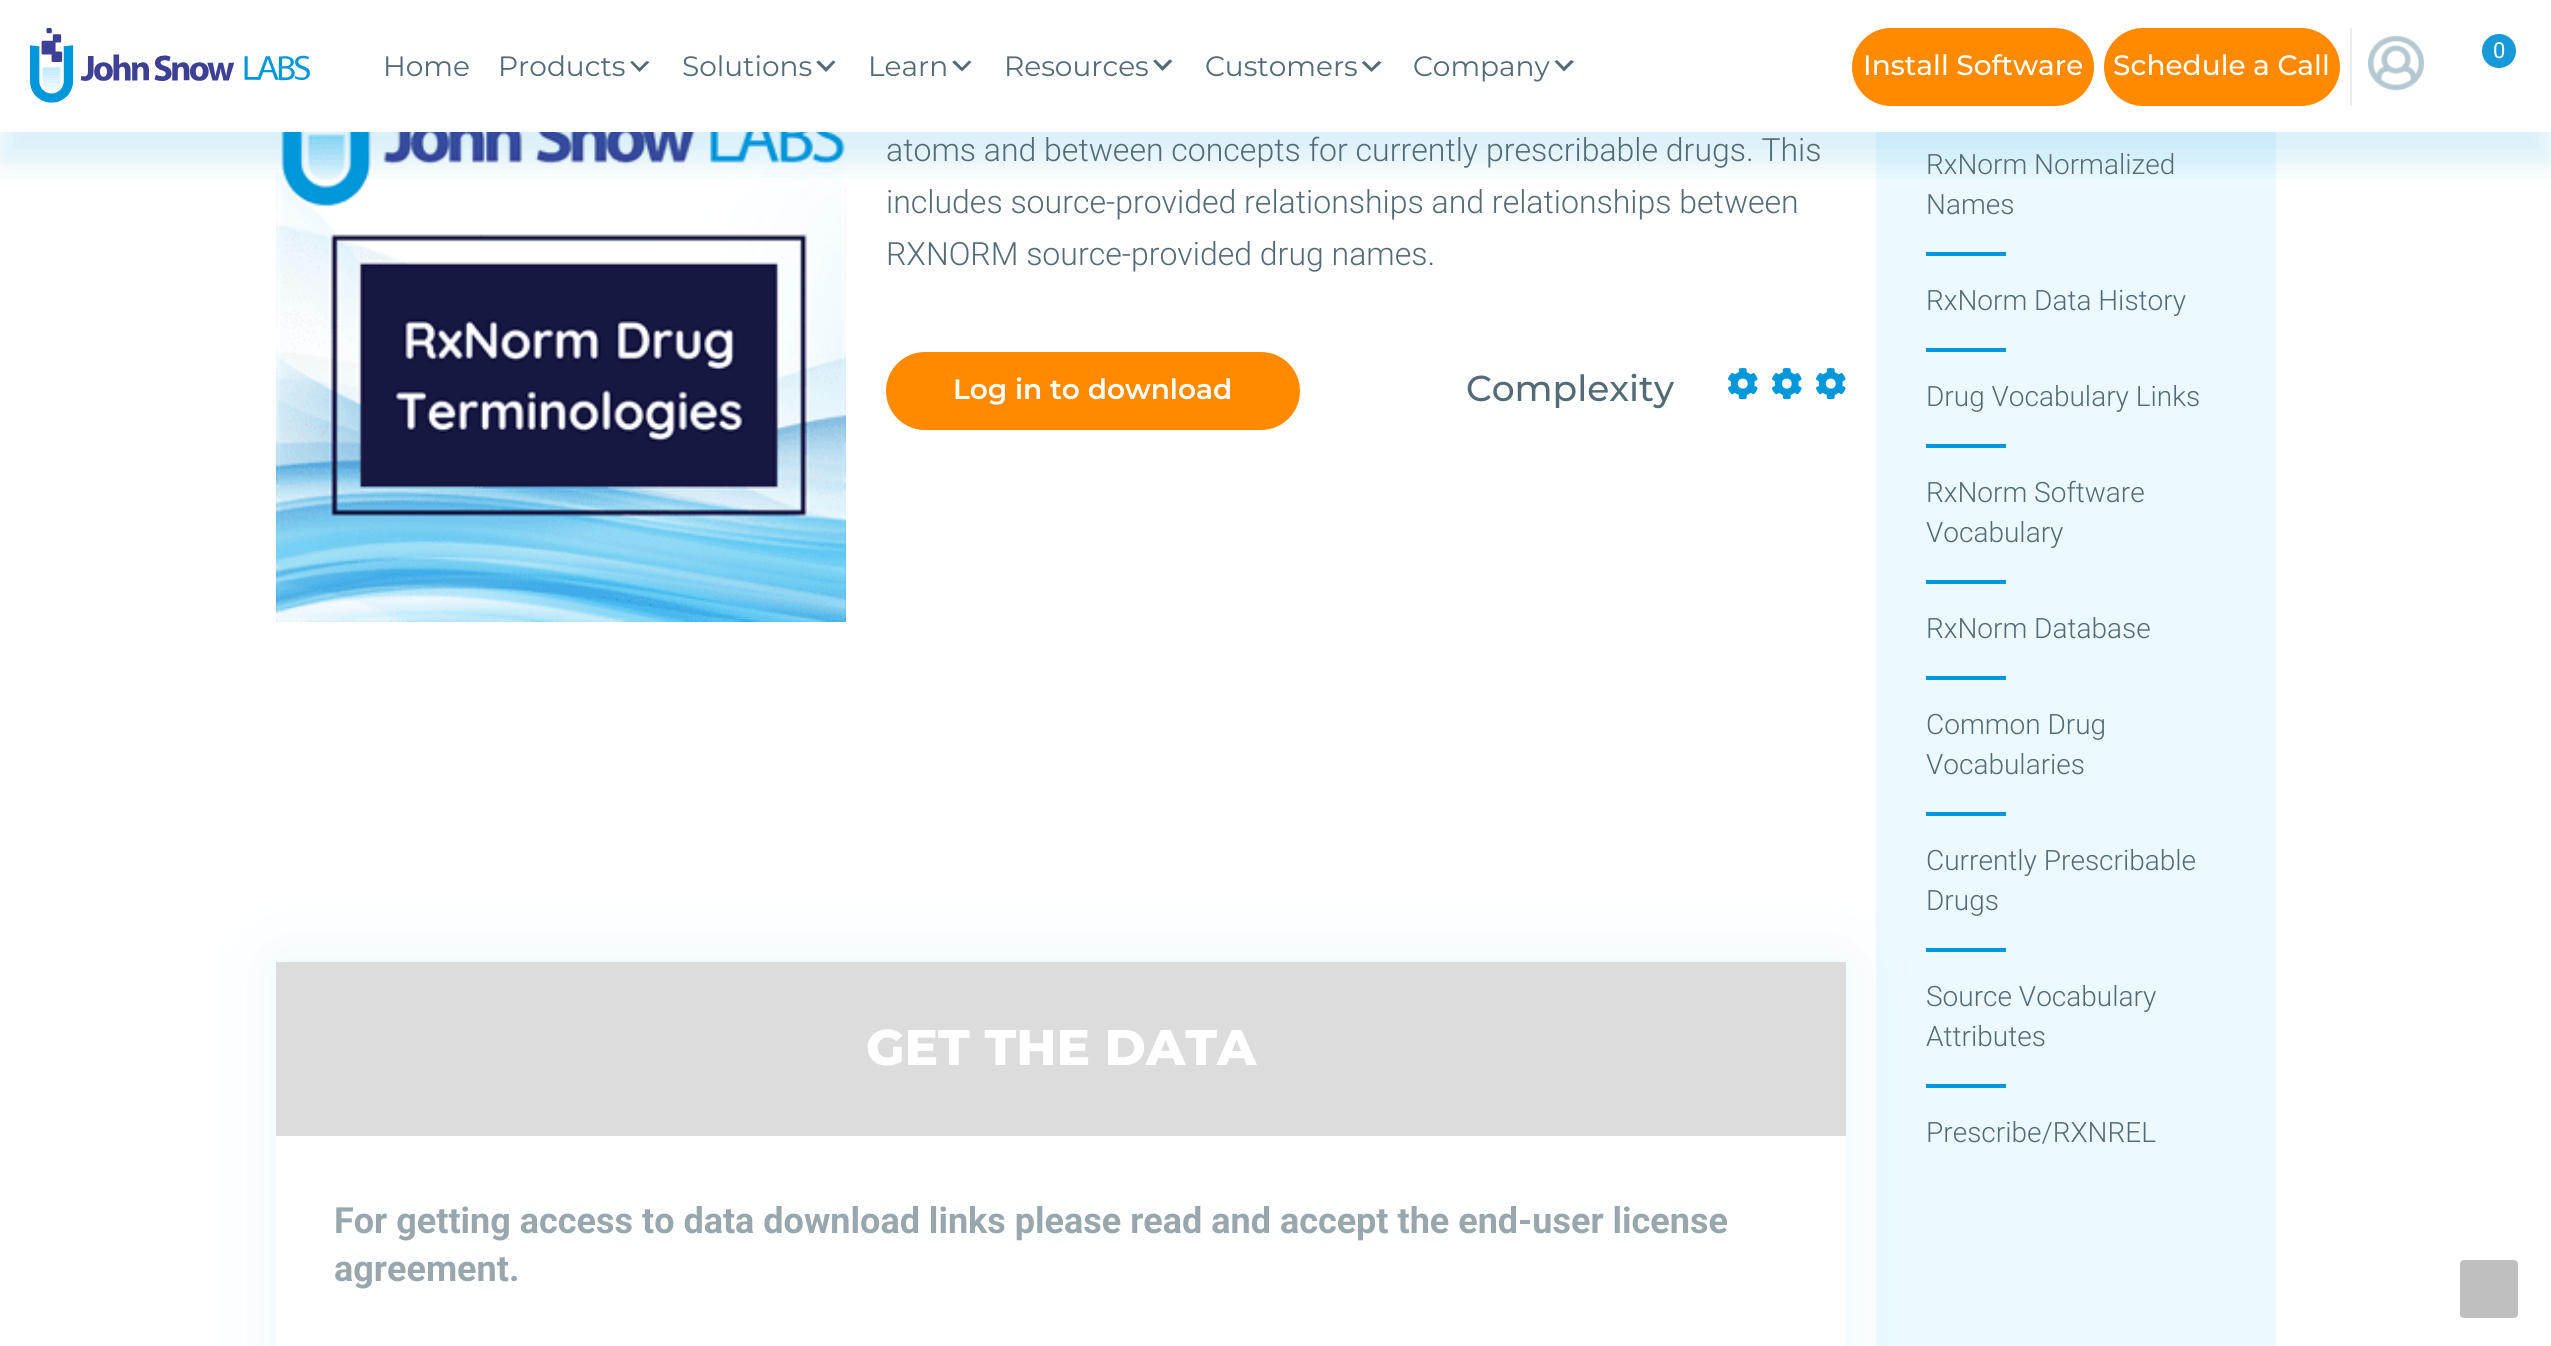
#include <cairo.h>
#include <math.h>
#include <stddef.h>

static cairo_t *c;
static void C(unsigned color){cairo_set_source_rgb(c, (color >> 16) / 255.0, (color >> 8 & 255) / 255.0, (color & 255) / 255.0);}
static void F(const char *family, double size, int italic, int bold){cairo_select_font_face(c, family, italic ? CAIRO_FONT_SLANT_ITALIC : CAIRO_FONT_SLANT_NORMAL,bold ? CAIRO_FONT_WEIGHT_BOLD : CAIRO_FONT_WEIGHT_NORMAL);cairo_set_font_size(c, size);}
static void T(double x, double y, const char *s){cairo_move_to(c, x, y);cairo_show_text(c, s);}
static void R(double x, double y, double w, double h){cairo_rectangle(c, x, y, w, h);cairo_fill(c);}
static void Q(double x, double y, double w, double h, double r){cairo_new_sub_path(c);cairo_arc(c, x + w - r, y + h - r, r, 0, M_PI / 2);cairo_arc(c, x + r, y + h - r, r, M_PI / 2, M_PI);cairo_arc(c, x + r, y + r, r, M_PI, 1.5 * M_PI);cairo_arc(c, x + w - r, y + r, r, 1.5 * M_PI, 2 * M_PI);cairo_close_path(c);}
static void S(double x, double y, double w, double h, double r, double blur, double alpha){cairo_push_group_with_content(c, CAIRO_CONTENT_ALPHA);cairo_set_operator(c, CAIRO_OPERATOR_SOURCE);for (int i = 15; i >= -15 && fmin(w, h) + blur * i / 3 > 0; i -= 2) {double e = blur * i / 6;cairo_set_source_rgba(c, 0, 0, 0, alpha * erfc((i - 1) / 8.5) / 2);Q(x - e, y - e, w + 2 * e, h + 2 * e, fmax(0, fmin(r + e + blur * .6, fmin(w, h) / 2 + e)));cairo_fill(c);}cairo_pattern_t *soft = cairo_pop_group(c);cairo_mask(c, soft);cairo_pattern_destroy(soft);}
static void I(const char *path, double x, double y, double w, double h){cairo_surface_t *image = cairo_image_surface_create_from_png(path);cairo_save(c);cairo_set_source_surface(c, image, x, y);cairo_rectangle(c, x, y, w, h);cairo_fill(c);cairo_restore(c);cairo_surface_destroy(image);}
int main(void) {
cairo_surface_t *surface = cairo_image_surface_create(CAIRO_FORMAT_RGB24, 2551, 1346);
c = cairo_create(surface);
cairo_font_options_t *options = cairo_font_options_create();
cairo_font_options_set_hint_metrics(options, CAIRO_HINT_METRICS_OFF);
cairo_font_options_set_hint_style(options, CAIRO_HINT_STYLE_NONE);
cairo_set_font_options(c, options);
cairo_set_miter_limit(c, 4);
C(0xffffff);
cairo_paint(c);
I("3.png",276,132,570,490);
C(0xecf9ff);
R(1876,132,400,1214);
cairo_save(c);
cairo_rectangle(c,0,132,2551,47);
cairo_clip(c);
C(0x0098da);
S(0,30,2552,132,0,15,.15);
cairo_restore(c);
I("1.png",30,28,280,75);
C(0x199ad8);
cairo_arc(c,2499,51,17,0,2 * M_PI);
cairo_fill(c);
F("Roboto",22,0,0);
C(0xffffff);
T(2493,58,"0");
F("Montserrat Thin",28,0,0);
C(0x536b76);
T(383,76,"Home");
T(498,76,"Products");
cairo_new_path(c);
cairo_move_to(c,632.5,61);
cairo_line_to(c,639.5,68);
cairo_line_to(c,646.5,61);
cairo_line_to(c,649.5,62);
cairo_line_to(c,639.5,72);
cairo_line_to(c,630,62);
cairo_close_path(c);
cairo_fill(c);
T(682,76,"Solutions");
cairo_new_path(c);
cairo_move_to(c,819,60.5);
cairo_line_to(c,826,67.5);
cairo_line_to(c,833,60.5);
cairo_line_to(c,835.5,62);
cairo_line_to(c,826,72);
cairo_line_to(c,816,62);
cairo_close_path(c);
cairo_fill(c);
T(868,76,"Learn");
cairo_new_path(c);
cairo_move_to(c,955,60.5);
cairo_line_to(c,962,67.5);
cairo_line_to(c,969,60.5);
cairo_line_to(c,971.5,62);
cairo_line_to(c,962,71.5);
cairo_line_to(c,952,62);
cairo_close_path(c);
cairo_fill(c);
T(1004,76,"Resources");
cairo_new_path(c);
cairo_move_to(c,1155.5,59.5);
cairo_line_to(c,1162.5,66.5);
cairo_line_to(c,1169.5,59.5);
cairo_line_to(c,1172.5,61);
cairo_line_to(c,1162.5,71);
cairo_line_to(c,1153,61);
cairo_close_path(c);
cairo_fill(c);
T(1205,76,"Customers");
cairo_new_path(c);
cairo_move_to(c,1364.5,61);
cairo_line_to(c,1371.5,68);
cairo_line_to(c,1378.5,61);
cairo_line_to(c,1381.5,62.5);
cairo_line_to(c,1371.5,72);
cairo_line_to(c,1361.5,62.5);
cairo_close_path(c);
cairo_fill(c);
T(1413,76,"Company");
cairo_new_path(c);
cairo_move_to(c,1557,60);
cairo_line_to(c,1564,67);
cairo_line_to(c,1571,60);
cairo_line_to(c,1574,61.5);
cairo_line_to(c,1564,71.5);
cairo_line_to(c,1554.5,61.5);
cairo_close_path(c);
cairo_fill(c);
C(0xff8a00);
Q(1852,28,242,78,39);
cairo_fill(c);
F("Montserrat Medium",28,0,0);
C(0xffffff);
T(1863,75,"Install Software");
C(0xff8a00);
Q(2104,28,236,78,39);
cairo_fill(c);
C(0xffffff);
T(2113,75,"Schedule a Call");
C(0xededed);
R(2350,28,2,78);
I("2.png",2368,35,56,56);
F("Roboto Light",32,0,0);
C(0x536b76);
T(886,161,"atoms and between concepts for currently prescribable drugs. This");
T(886,213,"includes source-provided relationships and relationships between");
T(886,265,"RXNORM source-provided drug names.");
C(0xff8a00);
Q(886,352,414,78,39);
cairo_fill(c);
F("Montserrat SemiBold",28,0,0);
C(0xffffff);
T(953,399,"Log in to download");
F("Montserrat Medium",36,0,0);
C(0x536b76);
T(1466,401,"Complexity");
I("4.png",1728,368,118,32);
C(0x0098da);
R(1926,948,80,4);
R(1926,1084,80,4);
cairo_save(c);
cairo_set_fill_rule(c,CAIRO_FILL_RULE_EVEN_ODD);
cairo_new_path(c);
cairo_move_to(c,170,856);
cairo_line_to(c,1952,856);
cairo_line_to(c,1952,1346);
cairo_line_to(c,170,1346);
cairo_close_path(c);
cairo_move_to(c,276,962);
cairo_line_to(c,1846,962);
cairo_line_to(c,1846,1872);
cairo_line_to(c,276,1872);
cairo_close_path(c);
cairo_clip(c);
C(0x0098da);
S(276,962,1570,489,0,35,.09);
cairo_restore(c);
C(0xdcdcdc);
R(276,962,1570,174);
F("Montserrat ExtraBold",50,0,0);
C(0xffffff);
T(866,1065,"GET THE DATA");
F("Roboto",36,0,1);
C(0x98a6ad);
T(334,1233,"For getting access to data download links please read and accept the end-user license");
T(334,1281,"agreement.");
F("Roboto Light",28,0,0);
C(0x536b76);
T(1926,174,"RxNorm Normalized");
T(1926,214,"Names");
C(0x0098da);
R(1926,252,80,4);
C(0x536b76);
T(1926,310,"RxNorm Data History");
C(0x0098da);
R(1926,348,80,4);
C(0x536b76);
T(1926,406,"Drug Vocabulary Links");
C(0x0098da);
R(1926,444,80,4);
C(0x536b76);
T(1926,502,"RxNorm Software");
T(1926,542,"Vocabulary");
C(0x0098da);
R(1926,580,80,4);
C(0x536b76);
T(1926,638,"RxNorm Database");
C(0x0098da);
R(1926,676,80,4);
C(0x536b76);
T(1926,734,"Common Drug");
T(1926,774,"Vocabularies");
C(0x0098da);
R(1926,812,80,4);
C(0x536b76);
T(1926,870,"Currently Prescribable");
T(1926,910,"Drugs");
T(1926,1006,"Source Vocabulary");
T(1926,1046,"Attributes");
T(1926,1142,"Prescribe/RXNREL");
C(0xbfbfbf);
Q(2460,1260,58,58,4);
cairo_fill(c);
cairo_surface_write_to_png(surface, "o.png");
cairo_font_options_destroy(options);
cairo_destroy(c);
cairo_surface_destroy(surface);
return 0;
}
